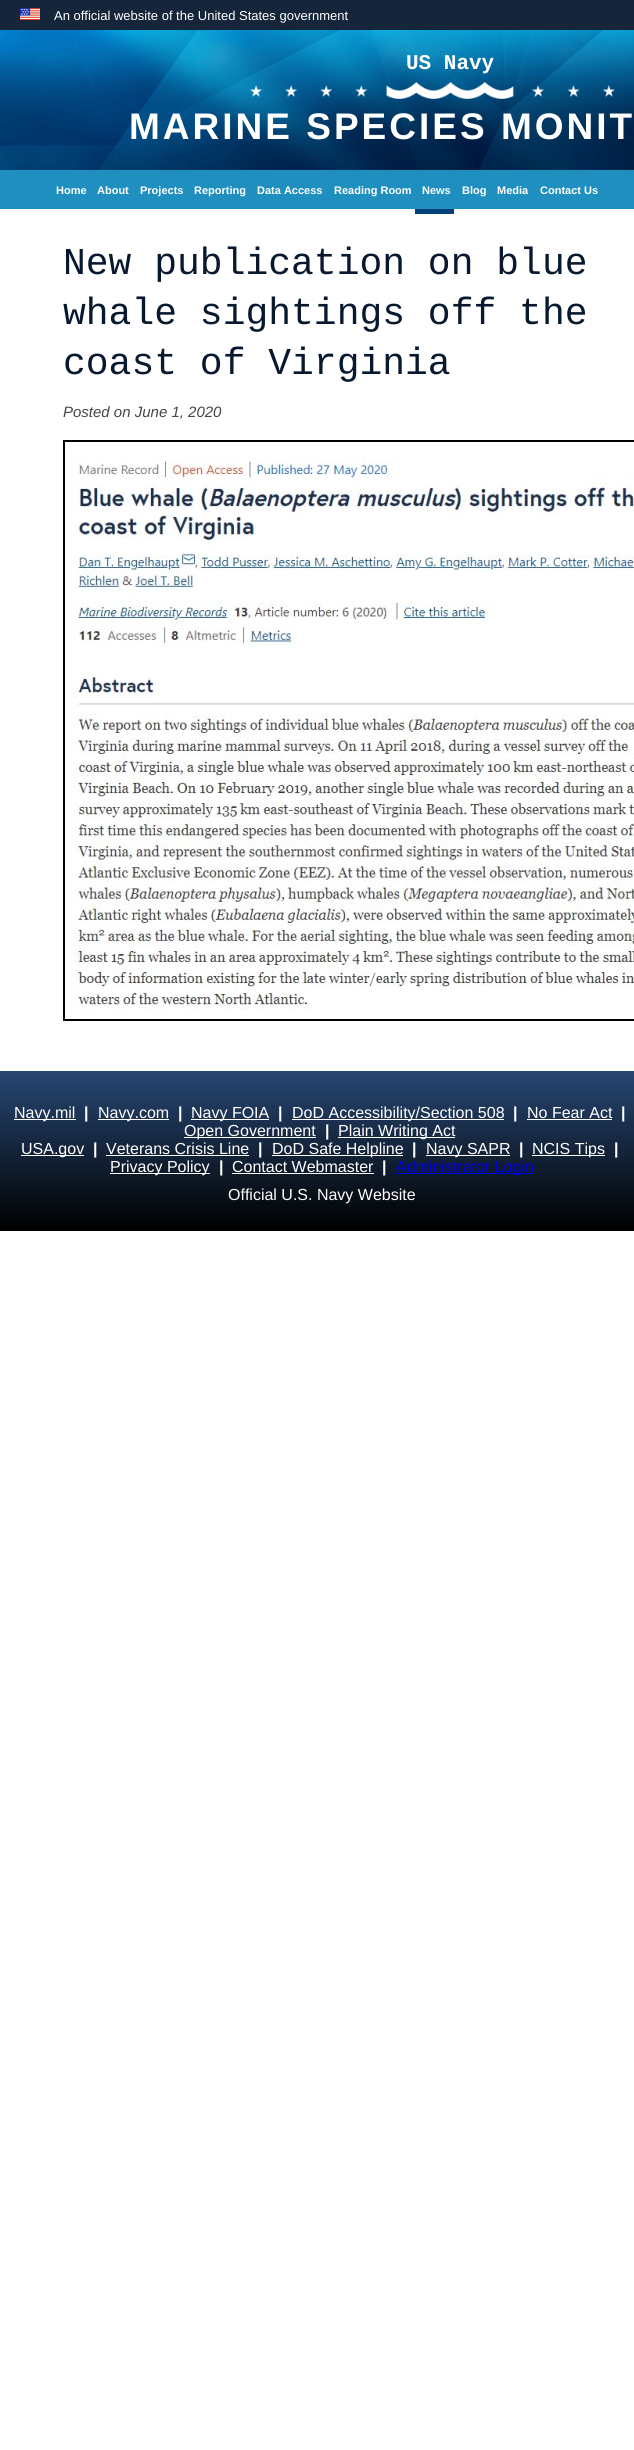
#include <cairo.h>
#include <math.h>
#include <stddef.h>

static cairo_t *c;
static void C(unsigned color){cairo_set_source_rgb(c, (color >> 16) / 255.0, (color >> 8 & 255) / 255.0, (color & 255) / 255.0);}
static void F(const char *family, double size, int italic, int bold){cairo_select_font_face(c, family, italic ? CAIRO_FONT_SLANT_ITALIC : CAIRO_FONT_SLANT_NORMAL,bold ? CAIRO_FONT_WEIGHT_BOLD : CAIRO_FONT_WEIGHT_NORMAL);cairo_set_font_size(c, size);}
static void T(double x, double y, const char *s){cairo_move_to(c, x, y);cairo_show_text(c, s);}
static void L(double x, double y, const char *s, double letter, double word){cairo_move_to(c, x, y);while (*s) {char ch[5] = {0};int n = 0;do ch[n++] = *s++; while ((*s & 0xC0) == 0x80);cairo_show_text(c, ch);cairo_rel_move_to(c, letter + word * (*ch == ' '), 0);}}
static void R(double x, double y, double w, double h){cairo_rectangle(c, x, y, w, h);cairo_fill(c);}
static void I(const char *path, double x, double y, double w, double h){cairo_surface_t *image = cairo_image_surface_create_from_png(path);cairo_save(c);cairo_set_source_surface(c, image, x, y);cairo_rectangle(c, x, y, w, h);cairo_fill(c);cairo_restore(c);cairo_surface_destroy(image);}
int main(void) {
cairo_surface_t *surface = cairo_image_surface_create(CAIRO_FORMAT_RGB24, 634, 2450);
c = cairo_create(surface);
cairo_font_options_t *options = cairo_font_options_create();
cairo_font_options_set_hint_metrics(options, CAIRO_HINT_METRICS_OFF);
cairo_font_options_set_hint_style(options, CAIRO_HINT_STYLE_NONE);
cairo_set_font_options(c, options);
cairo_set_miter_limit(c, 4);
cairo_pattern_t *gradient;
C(0xffffff);
cairo_paint(c);
C(0x15263b);
R(0,0,634,30);
I("1.png",20,8,20,12);
F("Liberation Sans",13,0,0);
C(0xffffff);
T(54,20,"An official website of the United States government");
I("2.png",0,30,634,140);
F("Liberation Mono",21,0,1);
T(406,69,"US Navy");
I("3.png",250,82,365,17);
F("Liberation Sans",37,0,1);
L(129,139,"MARINE SPECIES MONIT",3,0);
C(0x1f8fc0);
R(0,170,634,39);
F("Liberation Sans",11,0,1);
C(0xffffff);
T(56,194,"Home");
T(97,194,"About");
T(140,194,"Projects");
T(194,194,"Reporting");
T(257,194,"Data Access");
T(334,194,"Reading Room");
C(0x02417b);
R(415,209,39,5);
C(0xffffff);
T(422,194,"News");
T(462,194,"Blog");
T(497,194,"Media");
T(540,194,"Contact Us");
F("Liberation Mono",38,0,0);
C(0x08192f);
T(63,274,"New publication on blue");
T(63,324,"whale sightings off the");
T(63,374,"coast of Virginia");
F("Liberation Sans",15,1,0);
C(0x454545);
T(63,417,"Posted on June 1, 2020");
cairo_rectangle(c,64,441,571,579);
C(0x000000);
cairo_stroke(c);
I("4.png",73,458,561,552);
gradient = cairo_pattern_create_linear(317,1071,317,1231);
cairo_pattern_add_color_stop_rgba(gradient,0,0.153,0.278,0.451,1);
cairo_pattern_add_color_stop_rgba(gradient,1,0,0,0,1);
cairo_set_source(c,gradient);
cairo_pattern_destroy(gradient);
R(0,1071,634,160);
C(0xffffff);
R(14,1119,62,1);
F("Liberation Sans",16,0,0);
T(14,1118,"Navy.mil");
F("Liberation Sans",16,0,1);
T(84,1118,"|");
R(98,1119,71,1);
F("Liberation Sans",16,0,0);
T(98,1118,"Navy.com");
F("Liberation Sans",16,0,1);
T(178,1118,"|");
R(191,1119,78,1);
F("Liberation Sans",16,0,0);
T(191,1118,"Navy FOIA");
F("Liberation Sans",16,0,1);
T(278,1118,"|");
R(292,1119,212,1);
F("Liberation Sans",16,0,0);
T(292,1118,"DoD Accessibility/Section 508");
F("Liberation Sans",16,0,1);
T(513,1118,"|");
F("Liberation Sans",16,0,0);
T(527,1118,"No Fear Act");
R(527,1119,85,1);
F("Liberation Sans",16,0,1);
T(621,1118,"|");
R(184,1137,132,1);
F("Liberation Sans",16,0,0);
T(184,1136,"Open Government");
F("Liberation Sans",16,0,1);
T(325,1136,"|");
R(338,1137,117,1);
F("Liberation Sans",16,0,0);
T(338,1136,"Plain Writing Act");
R(21,1155,63,1);
T(21,1154,"USA.gov");
F("Liberation Sans",16,0,1);
T(93,1154,"|");
F("Liberation Sans",16,0,0);
T(106,1154,"Veterans Crisis Line");
R(106,1155,143,1);
F("Liberation Sans",16,0,1);
T(258,1154,"|");
R(272,1155,131,1);
F("Liberation Sans",16,0,0);
T(272,1154,"DoD Safe Helpline");
F("Liberation Sans",16,0,1);
T(412,1154,"|");
R(426,1155,84,1);
F("Liberation Sans",16,0,0);
T(426,1154,"Navy SAPR");
F("Liberation Sans",16,0,1);
T(519,1154,"|");
R(532,1155,73,1);
F("Liberation Sans",16,0,0);
T(532,1154,"NCIS Tips");
F("Liberation Sans",16,0,1);
T(614,1154,"|");
R(110,1173,100,1);
F("Liberation Sans",16,0,0);
T(110,1172,"Privacy Policy");
F("Liberation Sans",16,0,1);
T(219,1172,"|");
F("Liberation Sans",16,0,0);
T(232,1172,"Contact Webmaster");
R(232,1173,142,1);
F("Liberation Sans",16,0,1);
T(382,1172,"|");
C(0x0000ee);
R(396,1173,138,1);
F("Liberation Sans",16,0,0);
T(396,1172,"Administrator Login");
C(0xffffff);
T(228,1200,"Official U.S. Navy Website");
cairo_surface_write_to_png(surface, "o.png");
cairo_font_options_destroy(options);
cairo_destroy(c);
cairo_surface_destroy(surface);
return 0;
}
